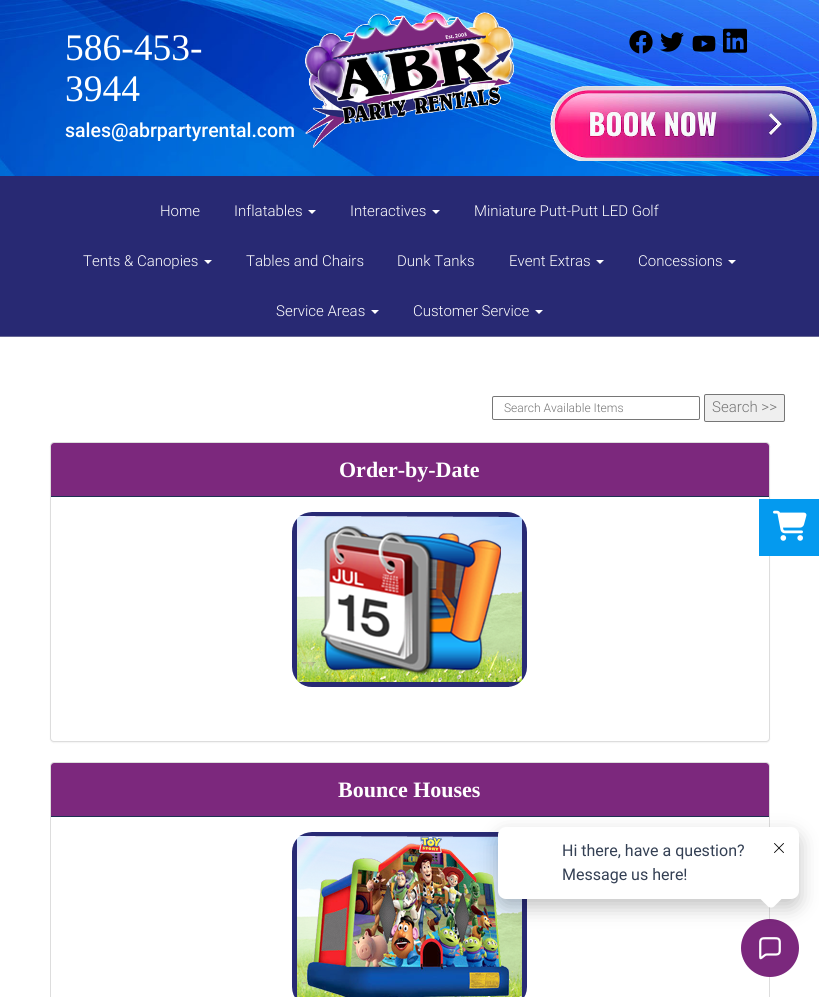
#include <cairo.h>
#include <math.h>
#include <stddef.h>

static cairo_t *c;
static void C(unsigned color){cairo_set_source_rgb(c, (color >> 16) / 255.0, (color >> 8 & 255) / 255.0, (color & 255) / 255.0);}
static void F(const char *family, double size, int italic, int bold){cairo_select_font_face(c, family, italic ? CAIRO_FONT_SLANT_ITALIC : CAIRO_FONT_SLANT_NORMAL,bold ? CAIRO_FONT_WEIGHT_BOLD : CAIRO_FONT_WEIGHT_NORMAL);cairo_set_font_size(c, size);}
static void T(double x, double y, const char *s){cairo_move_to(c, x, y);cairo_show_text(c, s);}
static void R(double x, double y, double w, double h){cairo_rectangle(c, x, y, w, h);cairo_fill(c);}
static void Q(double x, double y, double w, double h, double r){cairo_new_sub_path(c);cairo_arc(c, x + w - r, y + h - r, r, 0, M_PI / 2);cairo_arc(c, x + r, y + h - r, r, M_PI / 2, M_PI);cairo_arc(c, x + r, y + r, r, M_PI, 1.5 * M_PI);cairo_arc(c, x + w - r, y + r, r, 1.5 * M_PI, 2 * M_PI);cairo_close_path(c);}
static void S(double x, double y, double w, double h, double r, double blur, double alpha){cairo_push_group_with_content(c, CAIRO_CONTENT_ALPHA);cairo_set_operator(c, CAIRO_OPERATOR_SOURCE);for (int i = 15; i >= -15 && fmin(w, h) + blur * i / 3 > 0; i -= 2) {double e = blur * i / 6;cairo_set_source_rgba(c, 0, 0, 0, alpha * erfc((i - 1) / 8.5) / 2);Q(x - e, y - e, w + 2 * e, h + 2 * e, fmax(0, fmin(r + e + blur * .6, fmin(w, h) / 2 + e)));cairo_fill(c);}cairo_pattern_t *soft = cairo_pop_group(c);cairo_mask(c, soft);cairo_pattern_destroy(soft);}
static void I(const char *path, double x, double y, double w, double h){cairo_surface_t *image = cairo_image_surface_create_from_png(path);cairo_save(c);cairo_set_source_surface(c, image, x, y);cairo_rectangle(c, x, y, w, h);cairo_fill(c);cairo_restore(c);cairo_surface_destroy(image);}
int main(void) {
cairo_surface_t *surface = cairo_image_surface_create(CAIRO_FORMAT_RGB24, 819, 997);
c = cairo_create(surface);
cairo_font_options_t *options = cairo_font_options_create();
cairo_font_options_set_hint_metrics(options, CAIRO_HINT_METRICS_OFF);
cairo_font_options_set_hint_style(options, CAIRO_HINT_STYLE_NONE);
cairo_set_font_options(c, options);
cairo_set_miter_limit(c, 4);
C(0xffffff);
cairo_paint(c);
I("1.png",0,0,819,176);
F("Liberation Serif",37.5,0,0);
C(0xffffff);
T(65,60,"586-453-");
T(65,101,"3944");
F("Roboto Medium",19.5,0,0);
T(65,137,"sales@abrpartyrental.com");
I("2.png",305,12,209,136);
I("3.png",629,30,24,24);
I("4.png",660,32,24,20);
I("5.png",692,35,24,17);
I("6.png",723,28,24,25);
I("7.png",550,86,267,75);
C(0x282973);
R(0,176,819,160);
C(0x676794);
R(0,336,819,1);
F("Roboto Light",15,0,0);
C(0xffffff);
T(160,216,"Home");
T(234,216,"Inflatables");
cairo_new_path(c);
cairo_move_to(c,308,210);
cairo_line_to(c,316,210);
cairo_line_to(c,312,214);
cairo_close_path(c);
cairo_fill(c);
T(350,216,"Interactives");
cairo_new_path(c);
cairo_move_to(c,432,210);
cairo_line_to(c,440,210);
cairo_line_to(c,436,214);
cairo_close_path(c);
cairo_fill(c);
T(474,216,"Miniature Putt-Putt LED Golf");
T(83,266,"Tents & Canopies");
cairo_new_path(c);
cairo_move_to(c,204,260);
cairo_line_to(c,212,260);
cairo_line_to(c,208,264);
cairo_close_path(c);
cairo_fill(c);
T(246,266,"Tables and Chairs");
T(397,266,"Dunk Tanks");
T(509,266,"Event Extras");
cairo_new_path(c);
cairo_move_to(c,596,260);
cairo_line_to(c,604,260);
cairo_line_to(c,600,264);
cairo_close_path(c);
cairo_fill(c);
T(638,266,"Concessions");
cairo_new_path(c);
cairo_move_to(c,728,260);
cairo_line_to(c,736,260);
cairo_line_to(c,732,264);
cairo_close_path(c);
cairo_fill(c);
T(276,316,"Service Areas");
cairo_new_path(c);
cairo_move_to(c,371,310);
cairo_line_to(c,379,310);
cairo_line_to(c,375,314);
cairo_close_path(c);
cairo_fill(c);
T(413,316,"Customer Service");
cairo_new_path(c);
cairo_move_to(c,535,310);
cairo_line_to(c,543,310);
cairo_line_to(c,539,314);
cairo_close_path(c);
cairo_fill(c);
Q(492.5,396.5,207,23,1.5);
C(0x767676);
cairo_set_line_width(c,1);
cairo_stroke(c);
F("Roboto Light",12,0,0);
C(0x757575);
T(504,412,"Search Available Items");
C(0xefefef);
Q(704.5,394.5,80,27,1.5);
cairo_fill_preserve(c);
C(0x767676);
cairo_stroke(c);
F("Roboto Light",15,0,0);
C(0x757575);
T(712,412,"Search >>");
C(0x000000);
S(50,443,720,300,4,.5,.05);
C(0xffffff);
Q(50.5,442.5,719,299,3.5);
cairo_fill_preserve(c);
C(0xdddddd);
cairo_stroke(c);
C(0x7c287d);
cairo_new_path(c);
cairo_move_to(c,54,443);
cairo_line_to(c,766,443);
cairo_curve_to(c,767.5,443,769,444.5,769,446);
cairo_line_to(c,769,497);
cairo_line_to(c,51,497);
cairo_line_to(c,51,446);
cairo_curve_to(c,51,444.5,52.5,443,54,443);
cairo_close_path(c);
cairo_fill(c);
C(0x1d3153);
R(51,496,718,1);
F("Liberation Serif",22,0,1);
C(0xffffff);
T(339,477,"Order-by-Date");
I("8.png",292,512,235,175);
Q(50.5,762.5,719,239,3.5);
C(0xdddddd);
cairo_stroke(c);
C(0x7c287d);
cairo_new_path(c);
cairo_move_to(c,54,763);
cairo_line_to(c,766,763);
cairo_curve_to(c,767.5,763,769,764.5,769,766);
cairo_line_to(c,769,817);
cairo_line_to(c,51,817);
cairo_line_to(c,51,766);
cairo_curve_to(c,51,764.5,52.5,763,54,763);
cairo_close_path(c);
cairo_fill(c);
C(0x1d3153);
R(51,816,718,1);
C(0xffffff);
T(338,797,"Bounce Houses");
I("9.png",292,832,235,165);
C(0x049aef);
R(759,499,60,57);
I("10.png",773,510,34,31);
C(0x7b287d);
cairo_arc(c,770,948,29,0,2 * M_PI);
cairo_fill(c);
I("12.png",759,937,22,23);
C(0x000000);
S(498,835,301,72,8,10,.24);
C(0xffffff);
Q(498,827,301,72,8);
cairo_fill(c);
F("Roboto",16,0,0);
C(0x344054);
T(562,856,"Hi there, have a question?");
T(562,880,"Message us here!");
C(0xffffff);
cairo_new_path(c);
cairo_move_to(c,774,883.5);
cairo_line_to(c,782.5,892);
cairo_curve_to(c,784,893.5,784,896.5,782.5,898);
cairo_line_to(c,774,906.5);
cairo_curve_to(c,772.5,908,769.5,908,768,906.5);
cairo_line_to(c,759.5,898);
cairo_curve_to(c,758,896.5,758,893.5,759.5,892);
cairo_line_to(c,768,883.5);
cairo_curve_to(c,769.5,882,772.5,882,774,883.5);
cairo_close_path(c);
cairo_fill(c);
I("11.png",774,843,10,10);
cairo_surface_write_to_png(surface, "o.png");
cairo_font_options_destroy(options);
cairo_destroy(c);
cairo_surface_destroy(surface);
return 0;
}
